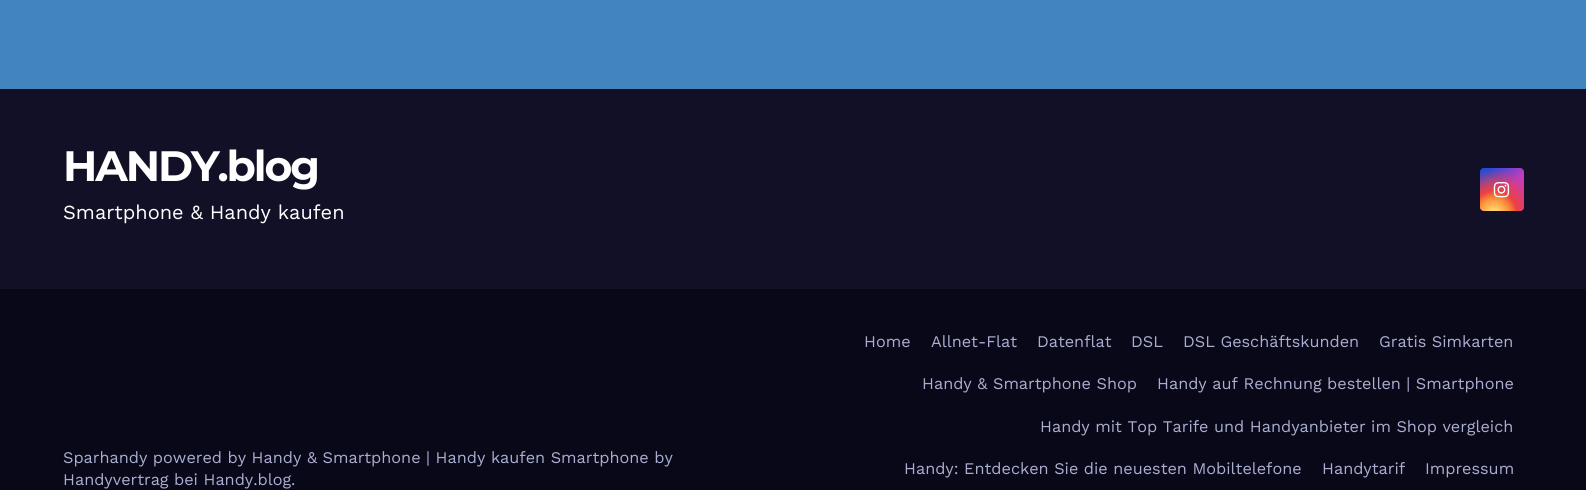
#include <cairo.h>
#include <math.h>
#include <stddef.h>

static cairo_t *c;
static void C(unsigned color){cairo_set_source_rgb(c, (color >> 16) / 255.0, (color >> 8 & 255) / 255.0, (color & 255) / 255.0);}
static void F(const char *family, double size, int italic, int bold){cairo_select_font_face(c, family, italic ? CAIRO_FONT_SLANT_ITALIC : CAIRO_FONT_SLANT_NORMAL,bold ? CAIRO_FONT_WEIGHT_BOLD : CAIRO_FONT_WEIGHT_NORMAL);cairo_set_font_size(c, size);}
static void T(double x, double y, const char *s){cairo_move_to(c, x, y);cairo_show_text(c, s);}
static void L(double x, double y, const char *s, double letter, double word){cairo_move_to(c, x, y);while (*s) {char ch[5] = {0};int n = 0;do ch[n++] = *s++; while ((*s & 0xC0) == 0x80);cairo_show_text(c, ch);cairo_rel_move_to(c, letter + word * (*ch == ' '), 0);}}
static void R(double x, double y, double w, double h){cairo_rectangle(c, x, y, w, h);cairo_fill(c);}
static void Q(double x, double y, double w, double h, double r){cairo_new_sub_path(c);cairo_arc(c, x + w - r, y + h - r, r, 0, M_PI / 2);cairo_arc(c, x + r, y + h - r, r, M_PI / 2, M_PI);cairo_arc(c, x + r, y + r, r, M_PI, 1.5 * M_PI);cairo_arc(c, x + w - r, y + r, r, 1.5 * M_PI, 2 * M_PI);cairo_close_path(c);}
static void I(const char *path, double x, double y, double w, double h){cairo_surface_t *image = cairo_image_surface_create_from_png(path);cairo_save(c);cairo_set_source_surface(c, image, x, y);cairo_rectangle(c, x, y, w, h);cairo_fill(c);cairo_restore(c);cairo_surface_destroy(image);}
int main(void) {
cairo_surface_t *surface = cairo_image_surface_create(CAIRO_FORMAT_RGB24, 1586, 490);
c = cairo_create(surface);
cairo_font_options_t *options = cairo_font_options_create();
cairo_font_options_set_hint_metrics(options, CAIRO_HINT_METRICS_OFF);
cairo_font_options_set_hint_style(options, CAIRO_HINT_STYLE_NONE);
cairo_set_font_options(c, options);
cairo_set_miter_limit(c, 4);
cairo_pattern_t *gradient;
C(0x4184bf);
cairo_paint(c);
C(0x121026);
R(0,89,1586,200);
F("Montserrat",42.5,0,1);
C(0xffffff);
L(63,181,"HANDY.blog",-2.1,0);
F("Work Sans",20,0,0);
T(63,219,"Smartphone & Handy kaufen");
gradient = cairo_pattern_create_linear(1480,168,1524,211);
cairo_pattern_add_color_stop_rgba(gradient,.12,0.137,0.294,0.843,1);
cairo_pattern_add_color_stop_rgba(gradient,.58,0.765,0.235,0.745,1);
cairo_set_source(c,gradient);
cairo_pattern_destroy(gradient);
Q(1480,168,44,43,4);
cairo_fill(c);
gradient = cairo_pattern_create_radial(1494,214,0,1494,214,55);
cairo_pattern_add_color_stop_rgba(gradient,0,1,0.882,0.49,1);
cairo_pattern_add_color_stop_rgba(gradient,.1,1,0.804,0.412,1);
cairo_pattern_add_color_stop_rgba(gradient,.28,0.98,0.569,0.216,1);
cairo_pattern_add_color_stop_rgba(gradient,.42,0.922,0.255,0.255,1);
cairo_pattern_add_color_stop_rgba(gradient,.82,0.922,0.255,0.255,0);
cairo_set_source(c,gradient);
cairo_pattern_destroy(gradient);
Q(1480,168,44,43,4);
cairo_fill(c);
I("1.png",1493,182,17,16);
C(0x090818);
R(0,289,1586,201);
F("Work Sans",16.25,0,0);
C(0xaaaed1);
T(63,463,"Sparhandy powered by Handy & Smartphone | Handy kaufen Smartphone by");
T(63,485,"Handyvertrag bei Handy.blog.");
T(864,347,"Home");
T(931,347,"Allnet-Flat");
T(1037,347,"Datenflat");
T(1131,347,"DSL");
T(1183,347,"DSL Geschäftskunden");
T(1379,347,"Gratis Simkarten");
T(922,389,"Handy & Smartphone Shop");
T(1157,389,"Handy auf Rechnung bestellen | Smartphone");
T(1040,432,"Handy mit Top Tarife und Handyanbieter im Shop vergleich");
T(904,474,"Handy: Entdecken Sie die neuesten Mobiltelefone");
T(1322,474,"Handytarif");
T(1425,474,"Impressum");
cairo_surface_write_to_png(surface, "o.png");
cairo_font_options_destroy(options);
cairo_destroy(c);
cairo_surface_destroy(surface);
return 0;
}
